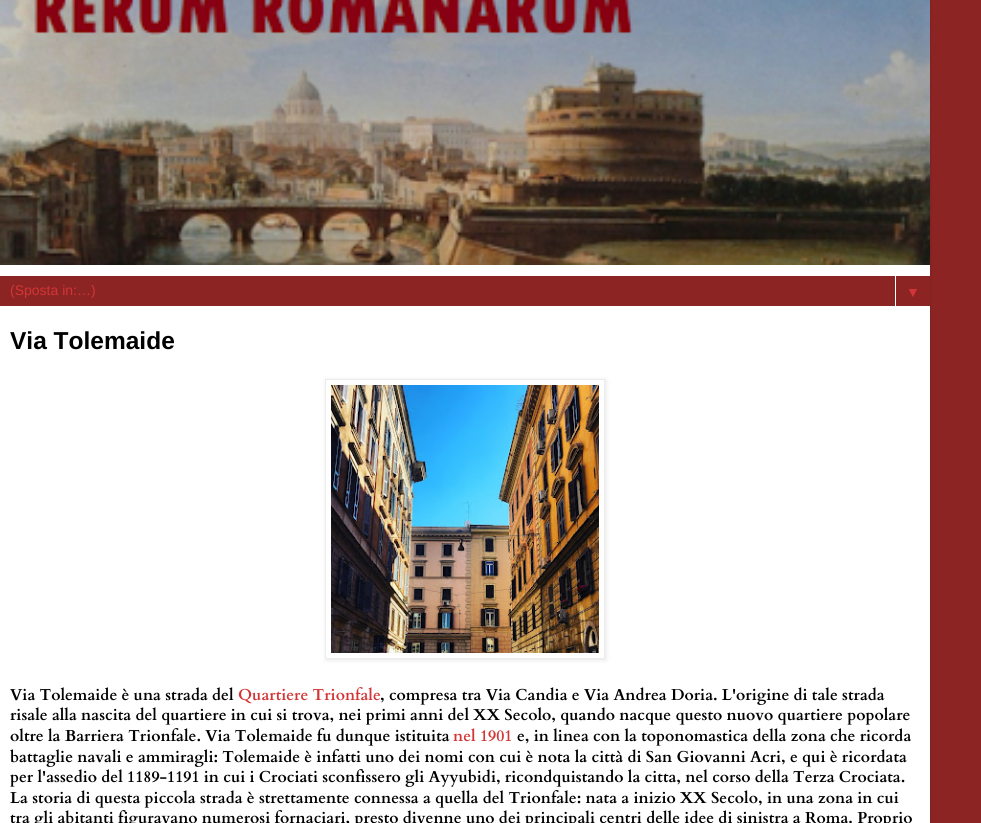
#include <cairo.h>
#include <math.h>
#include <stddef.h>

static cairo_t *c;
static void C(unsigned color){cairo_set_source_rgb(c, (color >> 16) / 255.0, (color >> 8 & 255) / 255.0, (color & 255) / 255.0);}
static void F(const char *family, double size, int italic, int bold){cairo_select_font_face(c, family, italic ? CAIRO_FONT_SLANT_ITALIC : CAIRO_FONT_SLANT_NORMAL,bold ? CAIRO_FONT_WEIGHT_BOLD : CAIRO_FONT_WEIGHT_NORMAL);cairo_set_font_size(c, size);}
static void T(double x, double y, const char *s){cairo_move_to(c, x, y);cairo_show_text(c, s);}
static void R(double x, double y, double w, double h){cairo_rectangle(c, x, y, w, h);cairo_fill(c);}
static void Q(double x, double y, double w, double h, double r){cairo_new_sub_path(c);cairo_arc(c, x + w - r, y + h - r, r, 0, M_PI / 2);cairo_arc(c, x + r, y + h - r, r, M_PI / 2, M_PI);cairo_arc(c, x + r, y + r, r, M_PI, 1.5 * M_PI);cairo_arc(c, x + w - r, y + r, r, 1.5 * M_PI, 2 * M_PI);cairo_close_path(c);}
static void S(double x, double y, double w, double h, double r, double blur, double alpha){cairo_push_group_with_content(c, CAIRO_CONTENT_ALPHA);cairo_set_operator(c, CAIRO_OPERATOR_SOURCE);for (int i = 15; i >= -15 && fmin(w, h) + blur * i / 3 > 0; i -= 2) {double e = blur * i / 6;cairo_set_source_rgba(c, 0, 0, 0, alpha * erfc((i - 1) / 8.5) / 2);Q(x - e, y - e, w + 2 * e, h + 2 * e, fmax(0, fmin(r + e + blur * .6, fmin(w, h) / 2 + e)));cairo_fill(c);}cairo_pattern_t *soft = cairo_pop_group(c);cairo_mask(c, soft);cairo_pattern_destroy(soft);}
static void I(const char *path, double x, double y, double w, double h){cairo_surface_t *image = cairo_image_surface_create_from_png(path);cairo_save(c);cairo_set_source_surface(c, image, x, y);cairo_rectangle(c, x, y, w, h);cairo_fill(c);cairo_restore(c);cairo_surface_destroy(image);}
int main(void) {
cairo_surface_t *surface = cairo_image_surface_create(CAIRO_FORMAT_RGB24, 981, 823);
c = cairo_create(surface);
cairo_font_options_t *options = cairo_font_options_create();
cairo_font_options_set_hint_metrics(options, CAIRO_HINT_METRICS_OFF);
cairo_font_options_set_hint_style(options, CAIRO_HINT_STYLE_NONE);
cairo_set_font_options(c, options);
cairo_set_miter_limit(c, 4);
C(0x8c2424);
cairo_paint(c);
C(0x000000);
S(0,-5,930,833,0,1.5,.15);
C(0xffffff);
R(0,265,930,558);
I("1.png",0,0,930,265);
C(0x8c2424);
R(0,276,930,30);
F("Liberation Sans",14,0,0);
C(0xd23535);
T(10,295,"(Sposta in:…)");
C(0xffffff);
R(895,275,1,32);
F("Liberation Sans",14,0,1);
C(0xd23535);
T(906,297,"▼");
F("Liberation Sans",24.5,0,1);
C(0x000000);
T(10,349,"Via Tolemaide");
cairo_save(c);
cairo_set_fill_rule(c,CAIRO_FILL_RULE_EVEN_ODD);
cairo_new_path(c);
cairo_move_to(c,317,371);
cairo_line_to(c,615,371);
cairo_line_to(c,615,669);
cairo_line_to(c,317,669);
cairo_close_path(c);
cairo_move_to(c,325,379);
cairo_line_to(c,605,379);
cairo_line_to(c,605,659);
cairo_line_to(c,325,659);
cairo_close_path(c);
cairo_clip(c);
C(0x000000);
S(326,380,280,280,0,2.5,.1);
cairo_restore(c);
cairo_rectangle(c,325.5,379.5,279,279);
C(0xececec);
cairo_set_line_width(c,1);
cairo_stroke(c);
I("2.png",331,385,268,268);
F("Cardo",15.85,0,1);
C(0x000000);
T(10,700,"Via Tolemaide è una strada del");
C(0xd23535);
T(238,700,"Quartiere Trionfale");
C(0x000000);
T(380,700,", compresa tra Via Candia e Via Andrea Doria. L'origine di tale strada");
T(10,720,"risale alla nascita del quartiere in cui si trova, nei primi anni del XX Secolo, quando nacque questo nuovo quartiere popolare");
T(10,741,"oltre la Barriera Trionfale. Via Tolemaide fu dunque istituita");
C(0xd23535);
T(453,741,"nel 1901");
C(0x000000);
T(517,741,"e, in linea con la toponomastica della zona che ricorda");
T(10,762,"battaglie navali e ammiragli: Tolemaide è infatti uno dei nomi con cui è nota la città di San Giovanni Acri, e qui è ricordata");
T(10,782,"per l'assedio del 1189-1191 in cui i Crociati sconfissero gli Ayyubidi, ricondquistando la citta, nel corso della Terza Crociata.");
T(10,803,"La storia di questa piccola strada è strettamente connessa a quella del Trionfale: nata a inizio XX Secolo, in una zona in cui");
T(10,823,"tra gli abitanti figuravano numerosi fornaciari, presto divenne uno dei principali centri delle idee di sinistra a Roma. Proprio");
cairo_surface_write_to_png(surface, "o.png");
cairo_font_options_destroy(options);
cairo_destroy(c);
cairo_surface_destroy(surface);
return 0;
}
